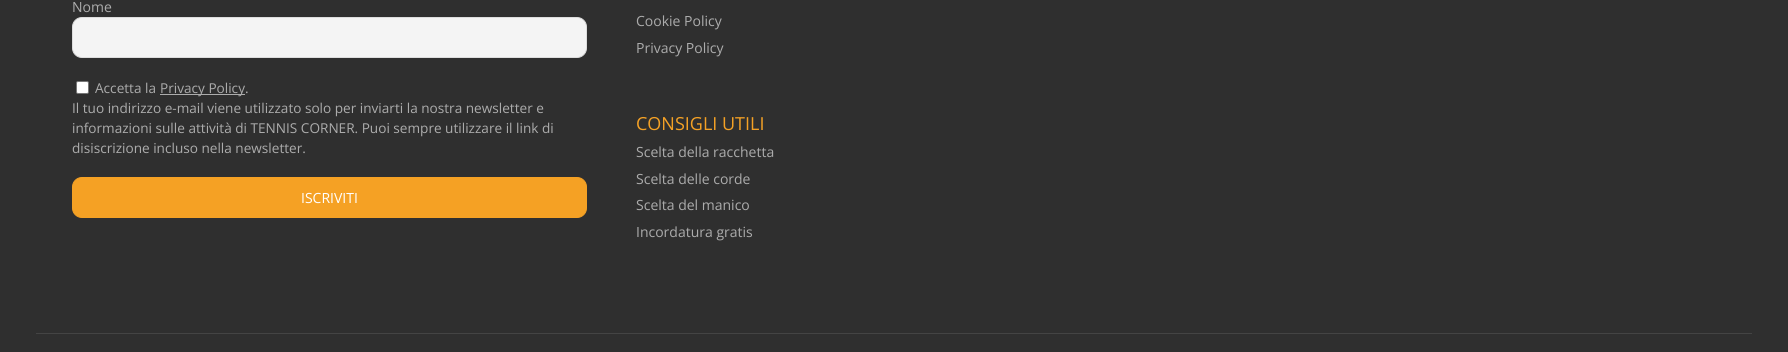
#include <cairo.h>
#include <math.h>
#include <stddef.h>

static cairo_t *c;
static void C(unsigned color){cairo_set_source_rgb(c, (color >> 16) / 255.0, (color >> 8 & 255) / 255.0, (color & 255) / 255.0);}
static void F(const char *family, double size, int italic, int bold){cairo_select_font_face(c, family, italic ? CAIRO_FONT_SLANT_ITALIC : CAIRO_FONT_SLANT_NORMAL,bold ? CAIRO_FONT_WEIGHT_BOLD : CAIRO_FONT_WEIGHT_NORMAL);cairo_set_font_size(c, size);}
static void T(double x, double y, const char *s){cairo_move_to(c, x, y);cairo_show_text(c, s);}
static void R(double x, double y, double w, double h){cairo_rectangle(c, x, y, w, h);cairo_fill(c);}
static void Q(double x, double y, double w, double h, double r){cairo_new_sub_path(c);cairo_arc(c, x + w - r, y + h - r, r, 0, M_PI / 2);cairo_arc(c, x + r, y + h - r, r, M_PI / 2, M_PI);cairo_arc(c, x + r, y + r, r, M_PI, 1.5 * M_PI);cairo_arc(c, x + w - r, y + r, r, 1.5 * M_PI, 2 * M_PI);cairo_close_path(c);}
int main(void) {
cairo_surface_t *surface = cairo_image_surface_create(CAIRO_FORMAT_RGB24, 1788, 352);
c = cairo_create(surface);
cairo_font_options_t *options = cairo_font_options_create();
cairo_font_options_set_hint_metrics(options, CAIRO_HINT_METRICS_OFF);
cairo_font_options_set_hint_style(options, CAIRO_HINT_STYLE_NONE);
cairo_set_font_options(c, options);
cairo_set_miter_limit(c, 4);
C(0x2f2f2f);
cairo_paint(c);
F("Open Sans",14,0,0);
C(0xacacac);
T(72,12,"Nome");
C(0xf4f4f4);
Q(72.5,17.5,514,40,9.5);
cairo_fill_preserve(c);
C(0xdddddd);
cairo_set_line_width(c,1);
cairo_stroke(c);
C(0xffffff);
Q(76.5,81.5,12,12,1.5);
cairo_fill_preserve(c);
C(0x767676);
cairo_stroke(c);
F("Open Sans",13.6,0,0);
C(0xacacac);
T(95,93,"Accetta la");
R(160,94,85,1);
T(160,93,"Privacy Policy.");
T(72,113,"Il tuo indirizzo e-mail viene utilizzato solo per inviarti la nostra newsletter e");
T(72,133,"informazioni sulle attività di TENNIS CORNER. Puoi sempre utilizzare il link di");
T(72,153,"disiscrizione incluso nella newsletter.");
C(0xf5a124);
Q(72.5,177.5,514,40,9.5);
cairo_fill_preserve(c);
cairo_stroke(c);
F("Open Sans",14,0,0);
C(0xffffff);
T(301,203,"ISCRIVITI");
C(0xacacac);
T(636,26,"Cookie Policy");
T(636,53,"Privacy Policy");
F("Open Sans",18,0,0);
C(0xf4a125);
T(636,130,"CONSIGLI UTILI");
F("Open Sans",14,0,0);
C(0xacacac);
T(636,157,"Scelta della racchetta");
T(636,184,"Scelta delle corde");
T(636,210,"Scelta del manico");
T(636,237,"Incordatura gratis");
C(0x444444);
R(36,333,1716,1);
cairo_surface_write_to_png(surface, "o.png");
cairo_font_options_destroy(options);
cairo_destroy(c);
cairo_surface_destroy(surface);
return 0;
}
